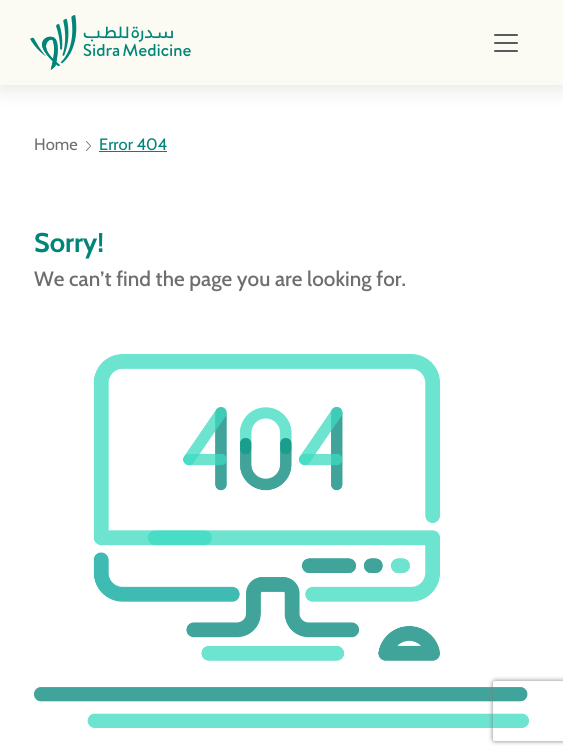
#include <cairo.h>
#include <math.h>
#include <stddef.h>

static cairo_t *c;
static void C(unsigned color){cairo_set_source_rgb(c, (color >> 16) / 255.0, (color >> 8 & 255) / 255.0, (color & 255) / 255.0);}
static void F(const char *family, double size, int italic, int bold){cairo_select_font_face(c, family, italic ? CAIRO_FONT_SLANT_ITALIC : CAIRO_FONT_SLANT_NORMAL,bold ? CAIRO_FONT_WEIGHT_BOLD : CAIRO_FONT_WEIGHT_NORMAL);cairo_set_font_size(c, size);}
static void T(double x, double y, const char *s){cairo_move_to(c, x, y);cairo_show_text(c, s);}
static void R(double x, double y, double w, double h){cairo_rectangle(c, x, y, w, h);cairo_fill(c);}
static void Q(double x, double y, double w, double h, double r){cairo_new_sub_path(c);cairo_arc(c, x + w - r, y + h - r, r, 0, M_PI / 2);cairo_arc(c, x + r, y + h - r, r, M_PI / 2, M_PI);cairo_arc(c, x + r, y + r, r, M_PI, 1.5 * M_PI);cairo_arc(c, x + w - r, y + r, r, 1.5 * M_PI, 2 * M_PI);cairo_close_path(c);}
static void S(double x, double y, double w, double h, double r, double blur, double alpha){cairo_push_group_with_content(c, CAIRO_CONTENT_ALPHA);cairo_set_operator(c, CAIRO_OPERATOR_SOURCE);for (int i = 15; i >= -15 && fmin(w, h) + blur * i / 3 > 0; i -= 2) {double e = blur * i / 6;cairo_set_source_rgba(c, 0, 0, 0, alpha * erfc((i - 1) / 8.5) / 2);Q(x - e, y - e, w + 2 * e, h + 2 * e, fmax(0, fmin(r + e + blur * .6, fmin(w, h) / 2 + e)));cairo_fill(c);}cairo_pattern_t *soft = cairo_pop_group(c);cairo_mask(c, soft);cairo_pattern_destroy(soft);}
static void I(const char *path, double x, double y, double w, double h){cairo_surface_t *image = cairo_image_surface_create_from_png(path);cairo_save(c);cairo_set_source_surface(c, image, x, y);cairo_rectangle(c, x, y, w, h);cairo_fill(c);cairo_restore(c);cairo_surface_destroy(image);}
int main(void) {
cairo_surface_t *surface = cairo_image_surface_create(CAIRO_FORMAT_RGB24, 563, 755);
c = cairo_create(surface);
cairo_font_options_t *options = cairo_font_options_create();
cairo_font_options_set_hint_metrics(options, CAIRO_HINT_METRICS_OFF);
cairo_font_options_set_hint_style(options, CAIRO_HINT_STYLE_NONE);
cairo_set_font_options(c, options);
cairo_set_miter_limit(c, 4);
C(0xffffff);
cairo_paint(c);
C(0x000000);
S(0,4,563,85,0,10,.1);
C(0xfbfbf3);
R(0,0,563,85);
I("1.png",30,15,161,55);
I("2.png",494,34,24,18);
F("Cabin",16.5,0,0);
C(0x6d6e70);
T(34,150,"Home");
I("3.png",86,141,5,10);
C(0x008578);
T(99,150,"Error 404");
R(99,151,68,1);
F("Cabin",27,0,1);
T(34,252,"Sorry!");
F("Cabin Medium",20.75,0,0);
C(0x6d6e70);
T(34,286,"We can’t find the page you are looking for.");
I("4.png",34,354,495,374);
cairo_save(c);
cairo_set_fill_rule(c,CAIRO_FILL_RULE_EVEN_ODD);
cairo_new_path(c);
cairo_move_to(c,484,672);
cairo_line_to(c,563,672);
cairo_line_to(c,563,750);
cairo_line_to(c,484,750);
cairo_close_path(c);
cairo_move_to(c,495,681);
cairo_line_to(c,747,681);
cairo_curve_to(c,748,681,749,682,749,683);
cairo_line_to(c,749,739);
cairo_curve_to(c,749,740,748,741,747,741);
cairo_line_to(c,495,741);
cairo_curve_to(c,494,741,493,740,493,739);
cairo_line_to(c,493,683);
cairo_curve_to(c,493,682,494,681,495,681);
cairo_close_path(c);
cairo_clip(c);
C(0x808080);
S(493,681,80,60,2,2.5,1);
cairo_restore(c);
cairo_surface_write_to_png(surface, "o.png");
cairo_font_options_destroy(options);
cairo_destroy(c);
cairo_surface_destroy(surface);
return 0;
}
